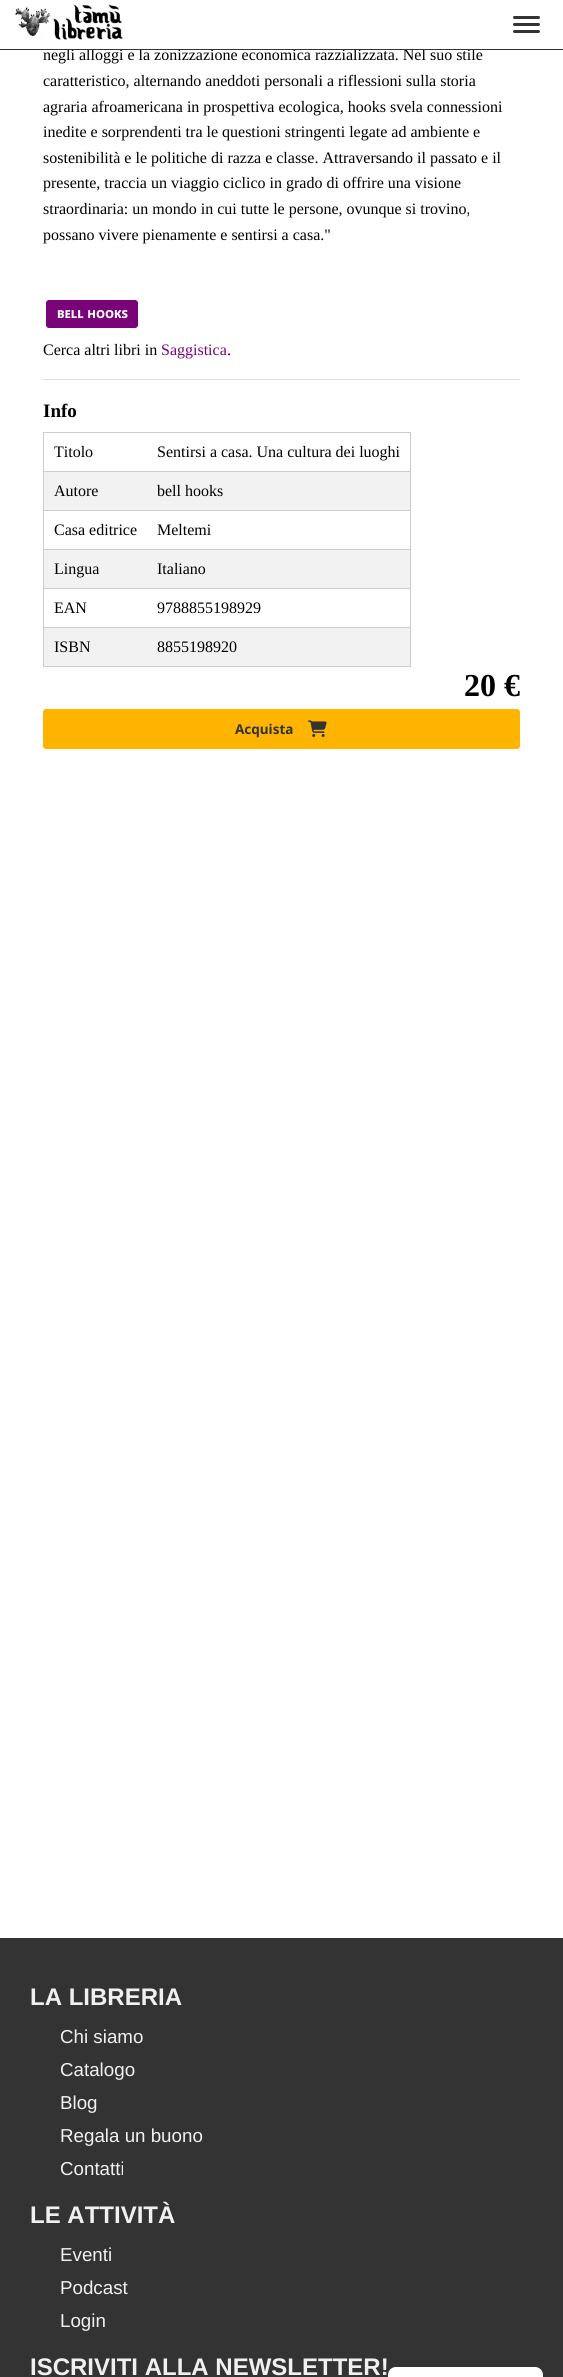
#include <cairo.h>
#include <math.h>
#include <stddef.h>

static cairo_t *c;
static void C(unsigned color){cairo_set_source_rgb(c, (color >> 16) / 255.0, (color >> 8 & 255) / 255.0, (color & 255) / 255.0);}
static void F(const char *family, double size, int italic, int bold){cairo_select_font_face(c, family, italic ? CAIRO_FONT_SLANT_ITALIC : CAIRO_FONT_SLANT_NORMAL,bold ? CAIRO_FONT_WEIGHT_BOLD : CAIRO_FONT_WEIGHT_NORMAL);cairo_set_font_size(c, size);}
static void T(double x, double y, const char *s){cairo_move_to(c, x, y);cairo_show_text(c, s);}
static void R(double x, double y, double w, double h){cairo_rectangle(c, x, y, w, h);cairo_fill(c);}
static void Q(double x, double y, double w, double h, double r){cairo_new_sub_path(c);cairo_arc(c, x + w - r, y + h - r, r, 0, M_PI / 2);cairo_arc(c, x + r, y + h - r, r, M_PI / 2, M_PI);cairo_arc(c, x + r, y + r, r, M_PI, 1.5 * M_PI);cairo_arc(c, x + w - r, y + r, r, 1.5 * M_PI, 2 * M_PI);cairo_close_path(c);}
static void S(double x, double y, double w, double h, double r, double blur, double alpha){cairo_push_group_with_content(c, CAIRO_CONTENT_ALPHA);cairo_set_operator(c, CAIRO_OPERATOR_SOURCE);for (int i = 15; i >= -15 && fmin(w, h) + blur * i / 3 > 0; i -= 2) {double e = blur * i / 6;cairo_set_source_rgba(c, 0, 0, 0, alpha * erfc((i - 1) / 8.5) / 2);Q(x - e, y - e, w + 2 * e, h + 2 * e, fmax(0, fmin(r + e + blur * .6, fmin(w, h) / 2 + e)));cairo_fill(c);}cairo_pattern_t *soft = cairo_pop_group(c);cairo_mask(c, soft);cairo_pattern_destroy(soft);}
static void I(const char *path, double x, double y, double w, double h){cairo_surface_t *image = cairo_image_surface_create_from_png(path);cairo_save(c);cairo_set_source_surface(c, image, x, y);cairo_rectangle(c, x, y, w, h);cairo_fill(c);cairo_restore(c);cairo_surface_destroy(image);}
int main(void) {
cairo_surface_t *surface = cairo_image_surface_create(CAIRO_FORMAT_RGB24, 563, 2377);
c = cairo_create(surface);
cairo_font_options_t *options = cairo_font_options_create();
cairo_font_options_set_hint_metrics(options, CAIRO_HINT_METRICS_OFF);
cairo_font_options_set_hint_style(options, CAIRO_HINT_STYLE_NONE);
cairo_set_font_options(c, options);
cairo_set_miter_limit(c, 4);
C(0xffffff);
cairo_paint(c);
F("Liberation Serif",16,0,0);
C(0x000000);
T(43,60,"negli alloggi e la zonizzazione economica razzializzata. Nel suo stile");
C(0xffffff);
R(66,48,408,1);
C(0x333333);
R(0,49,563,1);
I("1.png",15,4,108,36);
Q(513,16,27,3,1.5);
cairo_fill(c);
Q(513,23,27,3,1.5);
cairo_fill(c);
Q(513,30,27,3,1.5);
cairo_fill(c);
C(0x000000);
T(43,86,"caratteristico, alternando aneddoti personali a riflessioni sulla storia");
T(43,112,"agraria afroamericana in prospettiva ecologica, hooks svela connessioni");
T(43,137,"inedite e sorprendenti tra le questioni stringenti legate ad ambiente e");
T(43,163,"sostenibilità e le politiche di razza e classe. Attraversando il passato e il");
T(43,188,"presente, traccia un viaggio ciclico in grado di offrire una visione");
T(43,214,"straordinaria: un mondo in cui tutte le persone, ovunque si trovino,");
T(43,240,"possano vivere pienamente e sentirsi a casa.\"");
C(0x790477);
Q(46.5,300.5,91,27,2.5);
cairo_fill_preserve(c);
cairo_set_line_width(c,1);
cairo_stroke(c);
F("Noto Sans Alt",13.5,0,1);
C(0xffffff);
T(57,318,"bell hooks");
F("Liberation Serif",16,0,0);
C(0x000000);
T(43,355,"Cerca altri libri in");
C(0x790477);
T(161,355,"Saggistica");
C(0x000000);
T(227,355,".");
C(0xdddddd);
R(43,379,477,1);
F("Liberation Serif",19,0,1);
C(0x000000);
T(43,417,"Info");
C(0xcccccc);
R(43,432,368,1);
R(410,432,1,235);
R(43,666,368,1);
R(43,432,1,235);
R(43,471,368,1);
F("Liberation Serif",16,0,0);
C(0x000000);
T(54,457,"Titolo");
T(157,457,"Sentirsi a casa. Una cultura dei luoghi");
C(0xf2f2f2);
R(44,472,366,38);
C(0xcccccc);
R(43,510,368,1);
C(0x000000);
T(54,496,"Autore");
T(157,496,"bell hooks");
C(0xcccccc);
R(43,549,368,1);
C(0x000000);
T(54,535,"Casa editrice");
T(157,535,"Meltemi");
C(0xf2f2f2);
R(44,550,366,38);
C(0xcccccc);
R(43,588,368,1);
C(0x000000);
T(54,574,"Lingua");
T(157,574,"Italiano");
C(0xcccccc);
R(43,627,368,1);
C(0x000000);
T(54,613,"EAN");
T(157,613,"9788855198929");
C(0xf2f2f2);
R(44,628,366,38);
C(0x000000);
T(54,652,"ISBN");
T(157,652,"8855198920");
F("Liberation Serif",32,0,1);
T(464,696,"20 €");
C(0xffb400);
Q(43,709,477,40,3);
cairo_fill(c);
F("Noto Sans",13.5,0,1);
C(0x333333);
T(235,734,"Acquista");
I("2.png",308,720,19,18);
R(0,1938,563,439);
F("Liberation Sans",24,0,1);
C(0xf0f0f0);
T(30,2005,"LA LIBRERIA");
F("Liberation Sans",18.75,0,0);
T(60,2043,"Chi siamo");
T(60,2076,"Catalogo");
T(60,2109,"Blog");
T(60,2142,"Regala un buono");
T(60,2175,"Contatti");
F("Liberation Sans",24,0,1);
T(30,2223,"LE ATTIVITÀ");
F("Liberation Sans",18.75,0,0);
T(60,2261,"Eventi");
T(60,2294,"Podcast");
T(60,2327,"Login");
F("Liberation Sans",24,0,1);
T(30,2375,"ISCRIVITI ALLA NEWSLETTER!");
C(0x333333);
S(388,2367,155,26,8,2.5,1);
C(0xffffff);
cairo_new_path(c);
cairo_move_to(c,396,2367);
cairo_line_to(c,535,2367);
cairo_curve_to(c,539.5,2367,543,2370.5,543,2375);
cairo_line_to(c,543,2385);
cairo_line_to(c,388,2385);
cairo_line_to(c,388,2375);
cairo_curve_to(c,388,2370.5,391.5,2367,396,2367);
cairo_close_path(c);
cairo_fill(c);
cairo_surface_write_to_png(surface, "o.png");
cairo_font_options_destroy(options);
cairo_destroy(c);
cairo_surface_destroy(surface);
return 0;
}
